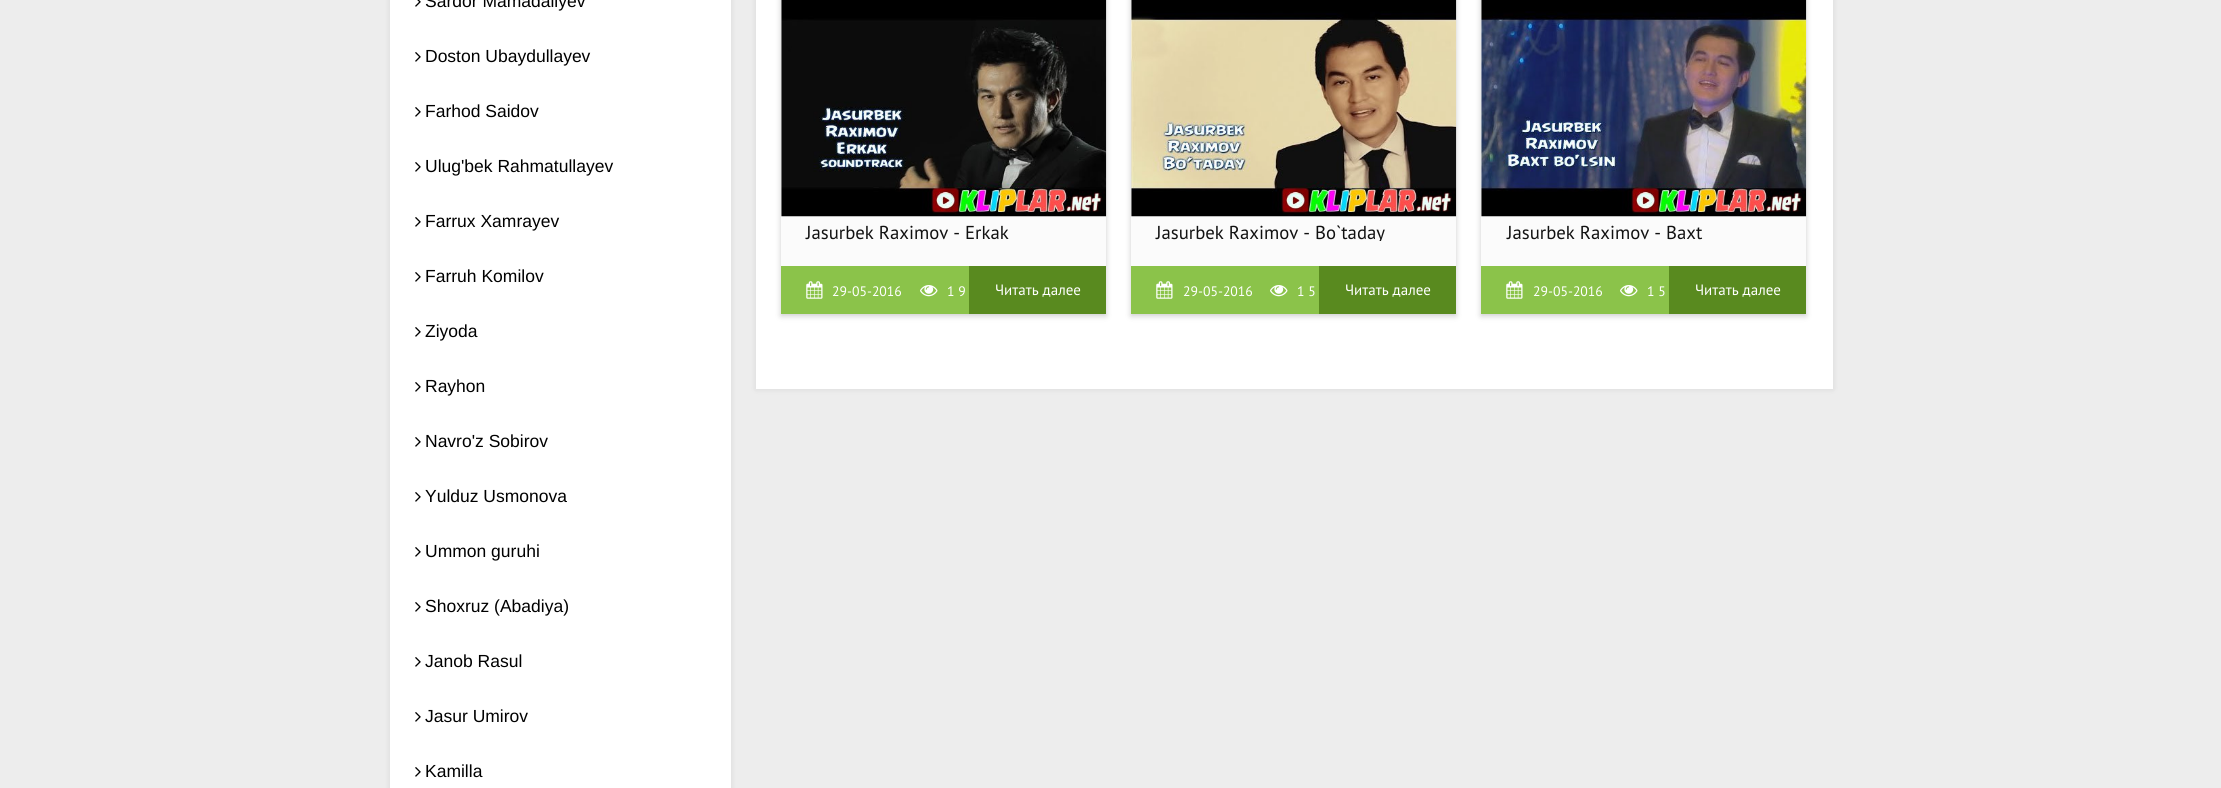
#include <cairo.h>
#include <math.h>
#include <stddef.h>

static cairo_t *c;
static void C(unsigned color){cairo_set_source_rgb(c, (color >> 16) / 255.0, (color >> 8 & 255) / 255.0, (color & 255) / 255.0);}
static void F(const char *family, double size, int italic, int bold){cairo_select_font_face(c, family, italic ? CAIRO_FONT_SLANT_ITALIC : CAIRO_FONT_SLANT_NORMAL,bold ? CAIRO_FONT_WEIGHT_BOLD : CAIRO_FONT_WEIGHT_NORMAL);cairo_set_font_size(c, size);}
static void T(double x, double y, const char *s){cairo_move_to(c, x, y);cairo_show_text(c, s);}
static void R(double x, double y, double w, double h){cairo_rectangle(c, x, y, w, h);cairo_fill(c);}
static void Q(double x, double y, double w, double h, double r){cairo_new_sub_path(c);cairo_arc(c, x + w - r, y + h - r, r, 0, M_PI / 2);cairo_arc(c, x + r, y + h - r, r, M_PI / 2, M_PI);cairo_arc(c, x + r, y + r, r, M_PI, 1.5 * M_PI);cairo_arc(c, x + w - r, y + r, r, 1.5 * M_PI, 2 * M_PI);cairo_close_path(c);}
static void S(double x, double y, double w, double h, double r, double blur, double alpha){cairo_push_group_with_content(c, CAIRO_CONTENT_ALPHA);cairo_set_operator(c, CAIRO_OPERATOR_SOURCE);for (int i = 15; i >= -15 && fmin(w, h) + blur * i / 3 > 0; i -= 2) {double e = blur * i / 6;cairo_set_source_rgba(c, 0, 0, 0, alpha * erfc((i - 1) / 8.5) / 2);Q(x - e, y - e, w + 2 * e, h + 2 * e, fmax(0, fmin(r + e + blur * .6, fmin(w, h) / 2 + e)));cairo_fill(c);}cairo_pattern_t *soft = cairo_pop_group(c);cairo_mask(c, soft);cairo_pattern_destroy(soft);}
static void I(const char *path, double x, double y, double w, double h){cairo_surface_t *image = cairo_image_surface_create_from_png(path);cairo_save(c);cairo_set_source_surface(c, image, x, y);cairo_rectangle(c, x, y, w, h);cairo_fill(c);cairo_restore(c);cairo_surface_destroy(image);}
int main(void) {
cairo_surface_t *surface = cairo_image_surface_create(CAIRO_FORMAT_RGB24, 2221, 788);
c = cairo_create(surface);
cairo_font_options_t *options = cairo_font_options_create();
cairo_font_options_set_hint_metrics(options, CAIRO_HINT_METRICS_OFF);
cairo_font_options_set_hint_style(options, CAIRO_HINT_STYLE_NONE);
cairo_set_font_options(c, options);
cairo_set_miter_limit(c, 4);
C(0xededed);
cairo_paint(c);
C(0x000000);
S(390,-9,341,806,0,3,.1);
C(0xffffff);
R(390,0,341,788);
I("1.png",415,0,6,7);
F("Liberation Sans",17.5,0,0);
C(0x000000);
T(425,7,"Sardor Mamadaliyev");
I("2.png",415,52,6,10);
T(425,62,"Doston Ubaydullayev");
I("2.png",415,107,6,10);
T(425,117,"Farhod Saidov");
I("2.png",415,162,6,10);
T(425,172,"Ulug'bek Rahmatullayev");
I("2.png",415,217,6,10);
T(425,227,"Farrux Xamrayev");
I("2.png",415,272,6,10);
T(425,282,"Farruh Komilov");
I("2.png",415,327,6,10);
T(425,337,"Ziyoda");
I("2.png",415,382,6,10);
T(425,392,"Rayhon");
I("2.png",415,437,6,10);
T(425,447,"Navro'z Sobirov");
I("2.png",415,492,6,10);
T(425,502,"Yulduz Usmonova");
I("2.png",415,547,6,10);
T(425,557,"Ummon guruhi");
I("2.png",415,602,6,10);
T(425,612,"Shoxruz (Abadiya)");
I("2.png",415,657,6,10);
T(425,667,"Janob Rasul");
I("2.png",415,712,6,10);
T(425,722,"Jasur Umirov");
I("2.png",415,767,6,10);
T(425,777,"Kamilla");
C(0x000000);
S(756,-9,1077,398,0,3,.1);
C(0xffffff);
R(756,0,1077,389);
C(0x000000);
S(781,-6,325,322,0,3,.2);
C(0xfbfbfb);
R(781,0,325,266);
I("3.png",781,0,326,217);
F("PT Sans",18.75,0,0);
C(0x111111);
T(806,239,"Jasurbek Raximov - Erkak");
C(0x8bc34a);
R(781,266,188,48);
I("4.png",806,281,17,18);
F("PT Sans",13.75,0,0);
C(0xffffff);
T(832,296,"29-05-2016");
I("5.png",920,285,18,12);
T(947,296,"1 9");
C(0x598a1f);
R(969,266,137,48);
F("PT Sans",15,0,0);
C(0xffffff);
T(995,295,"Читать далее");
C(0x000000);
S(1131,-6,325,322,0,3,.2);
C(0xfbfbfb);
R(1131,0,325,266);
I("6.png",1131,0,326,217);
cairo_save(c);
cairo_rectangle(c,1131,216,325,25);
cairo_clip(c);
F("PT Sans",18.75,0,0);
C(0x111111);
T(1156,239,"Jasurbek Raximov - Bo`taday");
cairo_restore(c);
C(0x8bc34a);
R(1131,266,188,48);
I("4.png",1156,281,17,18);
F("PT Sans",13.75,0,0);
C(0xffffff);
T(1183,296,"29-05-2016");
I("5.png",1270,285,18,12);
T(1297,296,"1 5");
C(0x598a1f);
R(1319,266,137,48);
F("PT Sans",15,0,0);
C(0xffffff);
T(1345,295,"Читать далее");
C(0x000000);
S(1481,-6,325,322,0,3,.2);
C(0xfbfbfb);
R(1481,0,325,266);
I("7.png",1481,0,326,217);
F("PT Sans",18.75,0,0);
C(0x111111);
T(1507,239,"Jasurbek Raximov - Baxt");
C(0x8bc34a);
R(1481,266,188,48);
I("4.png",1506,281,17,18);
F("PT Sans",13.75,0,0);
C(0xffffff);
T(1533,296,"29-05-2016");
I("5.png",1620,285,18,12);
T(1647,296,"1 5");
C(0x598a1f);
R(1669,266,137,48);
F("PT Sans",15,0,0);
C(0xffffff);
T(1695,295,"Читать далее");
cairo_surface_write_to_png(surface, "o.png");
cairo_font_options_destroy(options);
cairo_destroy(c);
cairo_surface_destroy(surface);
return 0;
}
